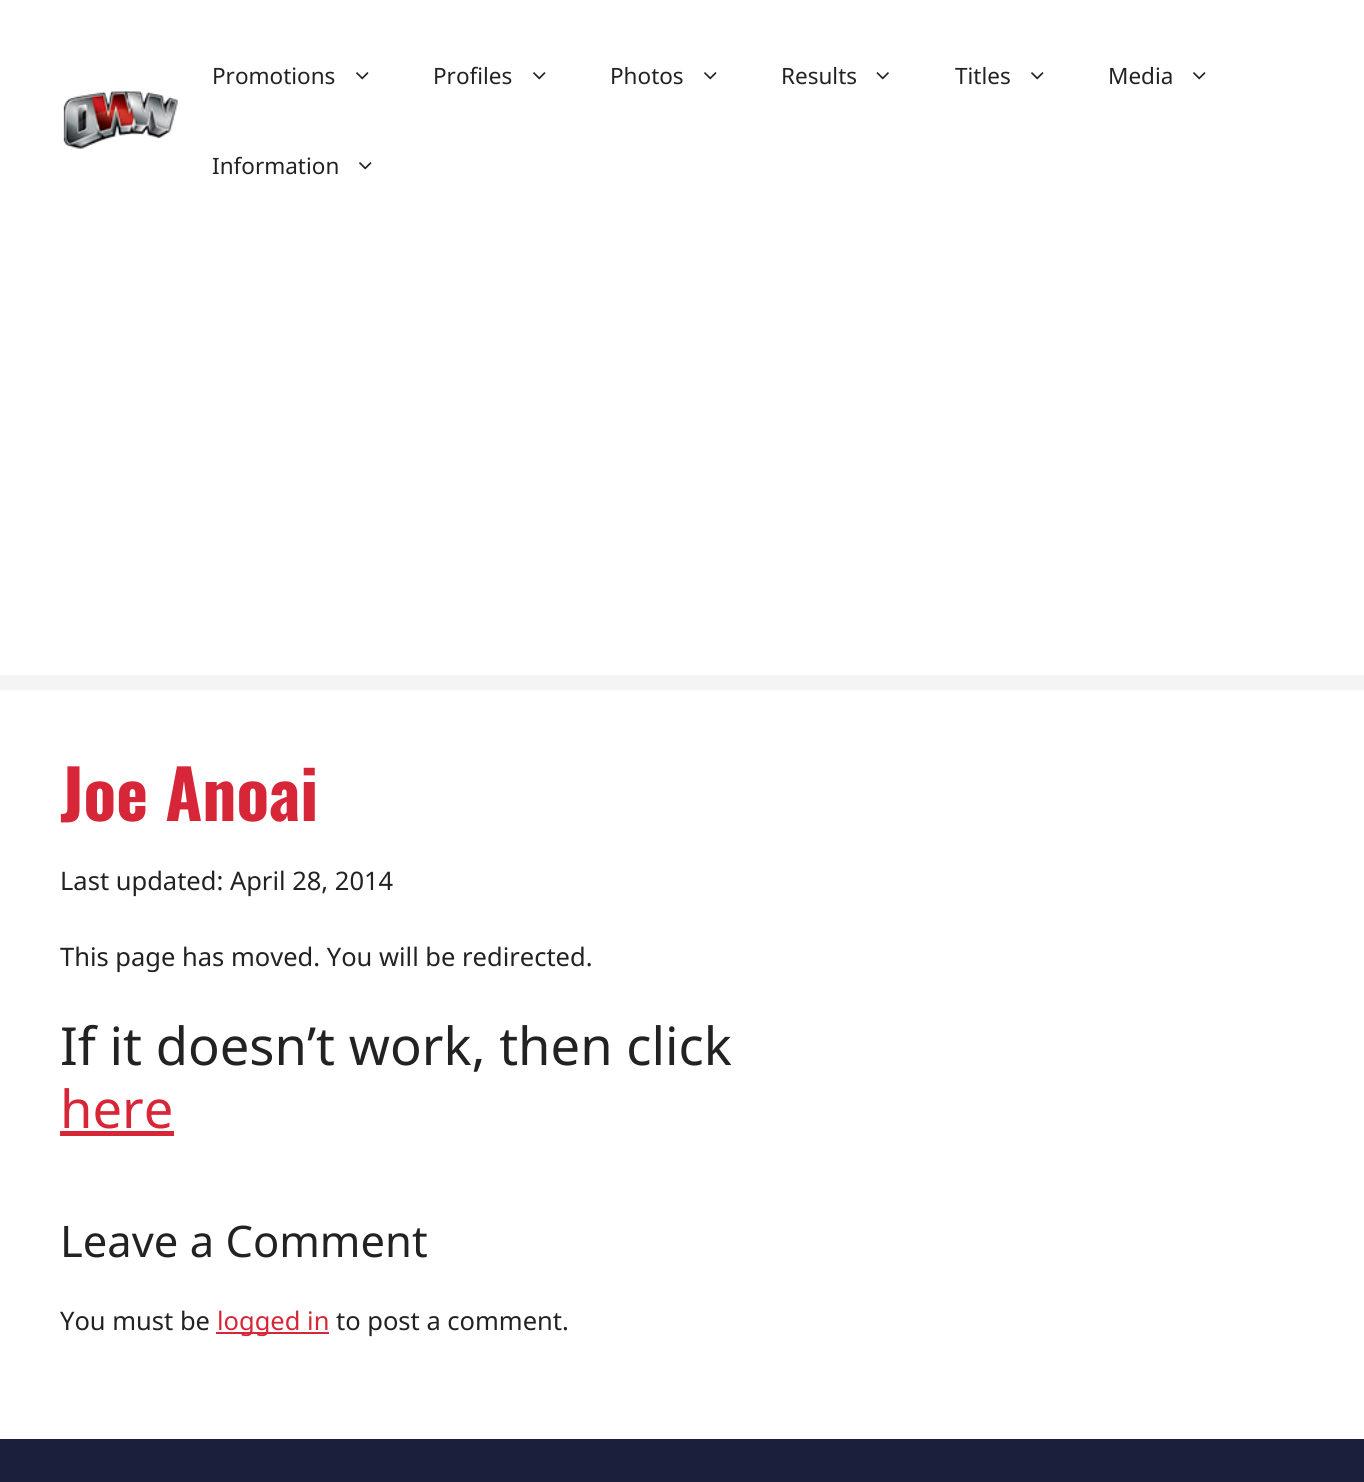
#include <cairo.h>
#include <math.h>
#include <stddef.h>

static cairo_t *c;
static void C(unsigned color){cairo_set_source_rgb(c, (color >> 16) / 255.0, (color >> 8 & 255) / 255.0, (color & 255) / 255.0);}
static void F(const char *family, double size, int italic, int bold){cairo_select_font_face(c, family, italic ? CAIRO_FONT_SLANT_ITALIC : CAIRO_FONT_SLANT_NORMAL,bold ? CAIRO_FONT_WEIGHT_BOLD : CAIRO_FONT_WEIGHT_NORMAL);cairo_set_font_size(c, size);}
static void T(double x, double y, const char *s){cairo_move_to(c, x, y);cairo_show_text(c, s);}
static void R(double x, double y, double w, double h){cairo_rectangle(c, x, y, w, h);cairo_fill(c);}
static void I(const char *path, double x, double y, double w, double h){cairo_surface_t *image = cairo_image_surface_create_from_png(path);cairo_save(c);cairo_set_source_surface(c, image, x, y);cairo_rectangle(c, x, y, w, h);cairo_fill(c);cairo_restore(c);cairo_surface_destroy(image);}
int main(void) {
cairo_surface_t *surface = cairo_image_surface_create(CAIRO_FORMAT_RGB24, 1364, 1482);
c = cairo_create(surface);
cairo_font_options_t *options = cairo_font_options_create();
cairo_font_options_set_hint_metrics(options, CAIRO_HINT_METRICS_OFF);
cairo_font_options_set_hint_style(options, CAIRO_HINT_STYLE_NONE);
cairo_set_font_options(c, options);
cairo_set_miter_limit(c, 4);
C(0xf4f4f4);
cairo_paint(c);
C(0xffffff);
R(0,0,1364,675);
I("1.png",63,91,115,58);
F("Noto Sans",22.5,0,0);
C(0x222222);
T(212,84,"Promotions");
I("2.png",356,72,13,8);
T(433,84,"Profiles");
I("2.png",533,72,13,8);
T(610,84,"Photos");
I("2.png",704,72,13,8);
T(781,84,"Results");
I("3.png",876,72,13,8);
T(955,84,"Titles");
I("2.png",1031,72,13,8);
T(1108,84,"Media");
I("2.png",1193,72,13,8);
T(212,174,"Information");
I("2.png",359,162,13,8);
C(0xffffff);
R(0,690,1364,749);
F("Oswald",67.5,0,1);
C(0xd72638);
T(60,821,"Joe Anoai");
F("Noto Sans",25.5,0,0);
C(0x222222);
T(60,890,"Last updated: April 28, 2014");
T(60,966,"This page has moved. You will be redirected.");
F("Noto Sans",52.5,0,0);
T(60,1065,"If it doesn’t work, then click");
C(0xd72638);
T(60,1128,"here");
R(60,1131,114,5);
F("Noto Sans",43.5,0,0);
C(0x222222);
T(60,1257,"Leave a Comment");
F("Noto Sans",25.5,0,0);
T(60,1330,"You must be");
C(0xd72638);
R(216,1332,113,2);
T(217,1330,"logged in");
C(0x222222);
T(336,1330,"to post a comment.");
C(0x1b1f3b);
R(0,1439,1364,43);
cairo_surface_write_to_png(surface, "o.png");
cairo_font_options_destroy(options);
cairo_destroy(c);
cairo_surface_destroy(surface);
return 0;
}
